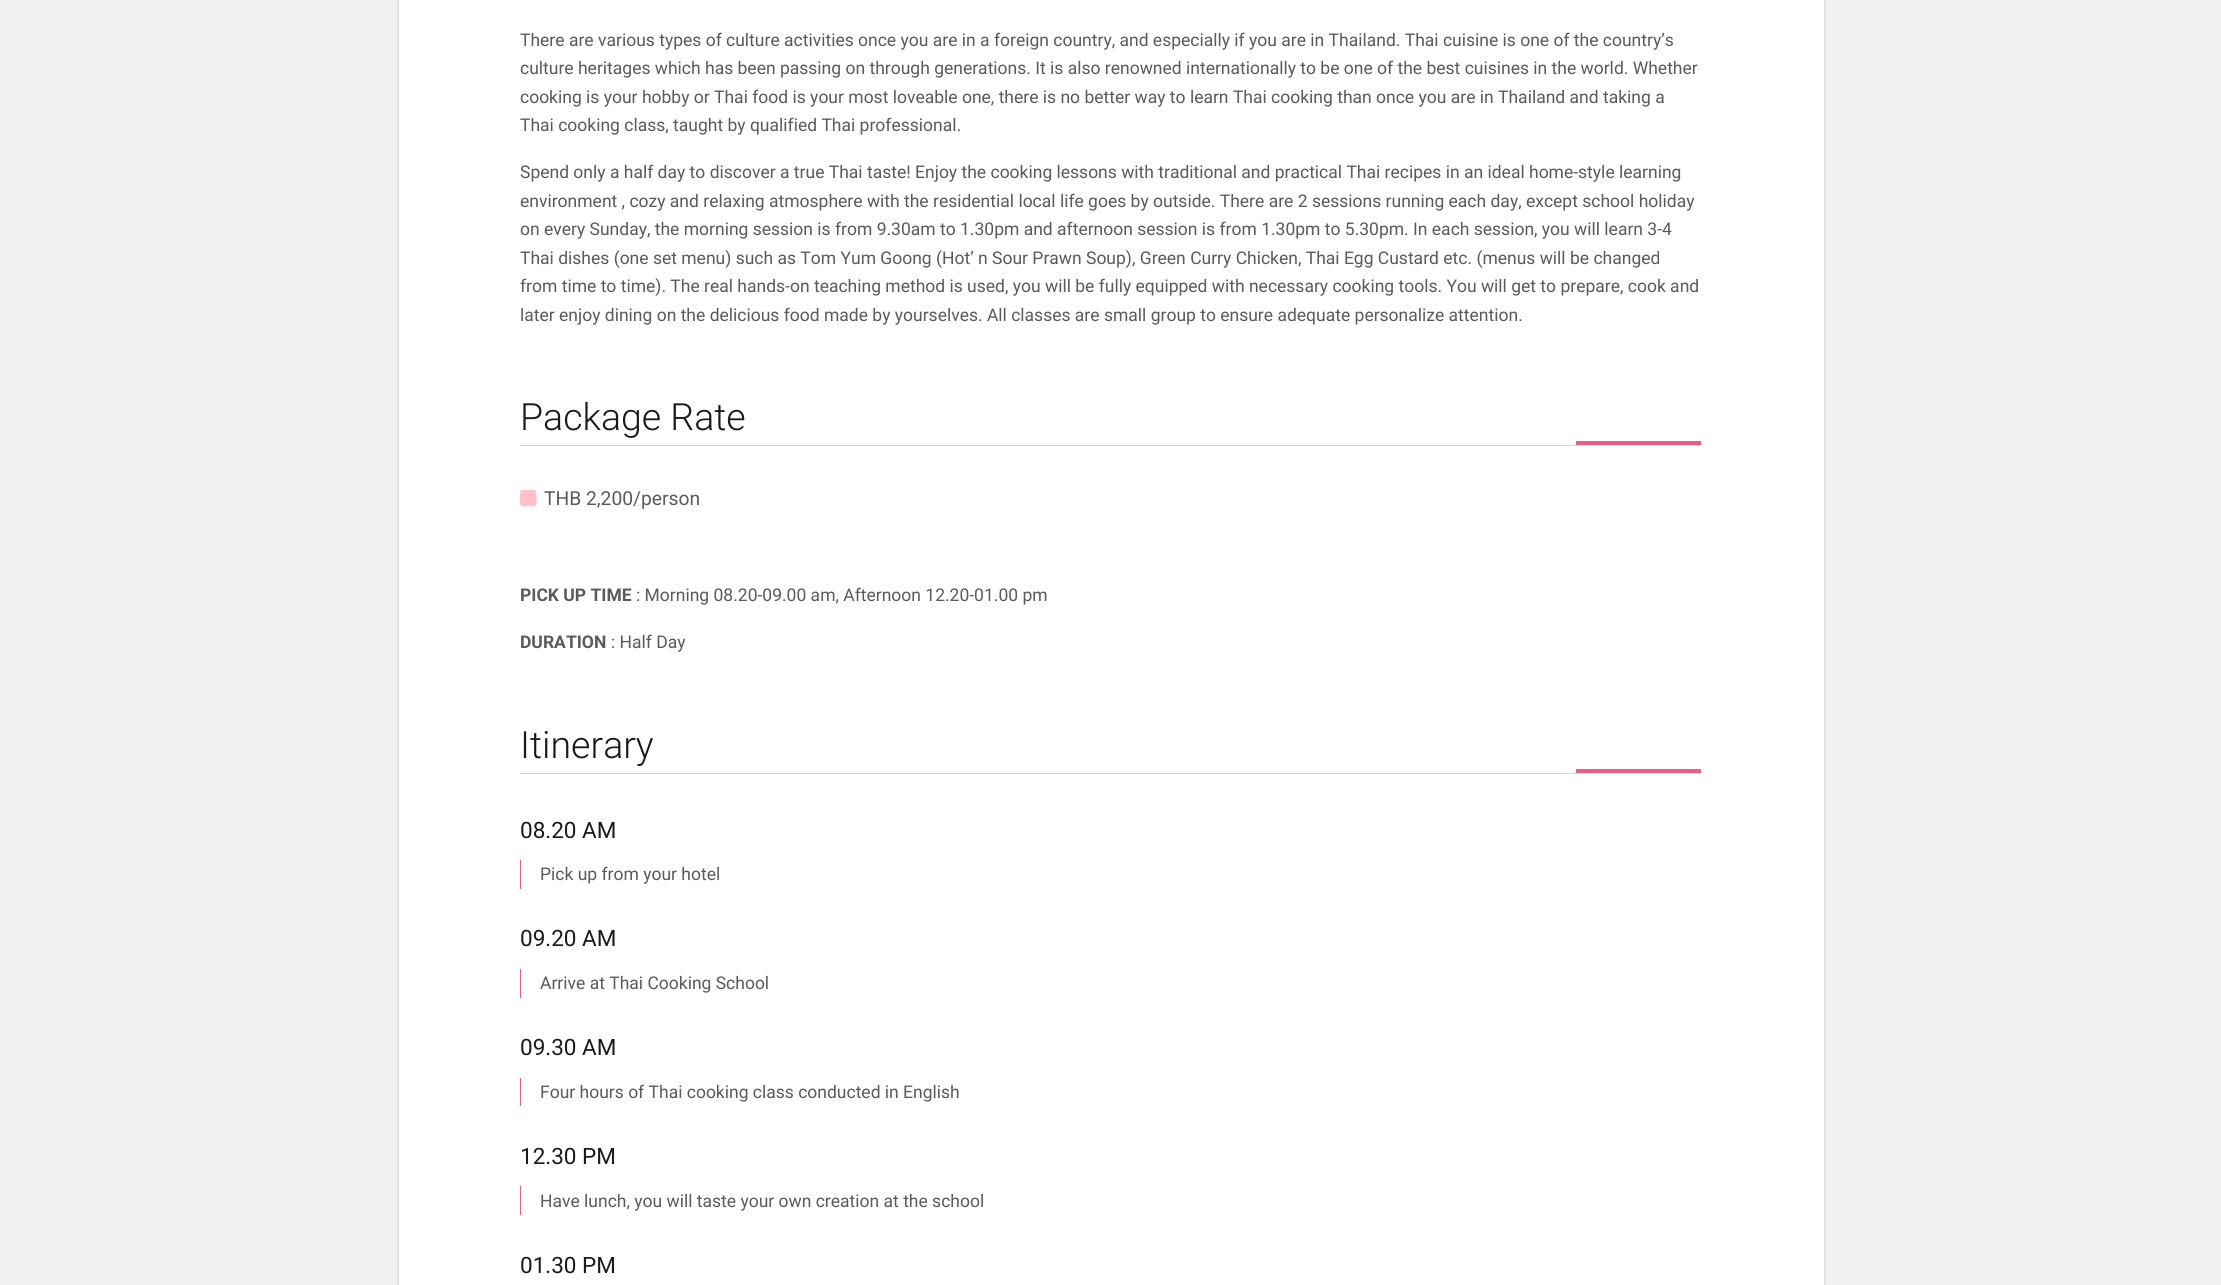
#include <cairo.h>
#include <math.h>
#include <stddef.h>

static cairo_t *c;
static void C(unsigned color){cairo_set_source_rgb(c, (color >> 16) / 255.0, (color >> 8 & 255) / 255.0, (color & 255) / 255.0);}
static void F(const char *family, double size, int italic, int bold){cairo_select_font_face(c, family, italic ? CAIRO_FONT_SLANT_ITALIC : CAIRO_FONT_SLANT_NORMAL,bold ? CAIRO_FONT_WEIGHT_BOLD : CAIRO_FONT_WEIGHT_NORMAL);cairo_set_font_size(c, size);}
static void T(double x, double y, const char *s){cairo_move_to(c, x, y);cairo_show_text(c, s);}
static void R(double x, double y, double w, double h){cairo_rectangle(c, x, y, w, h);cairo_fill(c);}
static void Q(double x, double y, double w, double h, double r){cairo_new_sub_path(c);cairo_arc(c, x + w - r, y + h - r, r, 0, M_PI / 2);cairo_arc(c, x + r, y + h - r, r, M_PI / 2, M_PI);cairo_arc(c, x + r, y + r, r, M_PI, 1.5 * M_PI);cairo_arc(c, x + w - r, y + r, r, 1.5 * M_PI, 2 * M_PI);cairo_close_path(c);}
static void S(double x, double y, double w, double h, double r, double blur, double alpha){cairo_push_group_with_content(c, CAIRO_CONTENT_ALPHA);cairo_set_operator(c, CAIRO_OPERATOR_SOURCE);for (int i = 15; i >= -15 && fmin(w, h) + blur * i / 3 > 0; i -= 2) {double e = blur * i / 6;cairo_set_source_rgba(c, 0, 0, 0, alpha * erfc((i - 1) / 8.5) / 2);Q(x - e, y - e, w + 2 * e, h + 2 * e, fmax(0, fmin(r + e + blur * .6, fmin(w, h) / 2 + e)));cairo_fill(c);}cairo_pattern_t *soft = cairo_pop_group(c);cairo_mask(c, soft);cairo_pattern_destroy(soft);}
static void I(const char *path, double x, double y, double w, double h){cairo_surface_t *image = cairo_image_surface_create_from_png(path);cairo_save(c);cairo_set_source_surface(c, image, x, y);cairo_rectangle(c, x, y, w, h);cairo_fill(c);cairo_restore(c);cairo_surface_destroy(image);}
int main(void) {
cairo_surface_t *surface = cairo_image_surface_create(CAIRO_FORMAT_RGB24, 2221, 1285);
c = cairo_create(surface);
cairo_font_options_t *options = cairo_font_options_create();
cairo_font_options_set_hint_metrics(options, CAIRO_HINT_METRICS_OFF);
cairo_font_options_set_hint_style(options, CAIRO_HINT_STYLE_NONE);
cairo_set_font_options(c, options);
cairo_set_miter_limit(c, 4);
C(0xf1f1f1);
cairo_paint(c);
C(0x000000);
S(399,-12,1425,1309,6,2,.2);
C(0xffffff);
R(399,0,1425,1285);
F("Roboto",17.5,0,0);
C(0x5a5a5a);
T(520,46,"There are various types of culture activities once you are in a foreign country, and especially if you are in Thailand. Thai cuisine is one of the country’s");
T(520,74,"culture heritages which has been passing on through generations. It is also renowned internationally to be one of the best cuisines in the world. Whether");
T(520,103,"cooking is your hobby or Thai food is your most loveable one, there is no better way to learn Thai cooking than once you are in Thailand and taking a");
T(520,131,"Thai cooking class, taught by qualified Thai professional.");
T(520,178,"Spend only a half day to discover a true Thai taste! Enjoy the cooking lessons with traditional and practical Thai recipes in an ideal home-style learning");
T(520,207,"environment , cozy and relaxing atmosphere with the residential local life goes by outside. There are 2 sessions running each day, except school holiday");
T(520,235,"on every Sunday, the morning session is from 9.30am to 1.30pm and afternoon session is from 1.30pm to 5.30pm. In each session, you will learn 3-4");
T(520,264,"Thai dishes (one set menu) such as Tom Yum Goong (Hot’ n Sour Prawn Soup), Green Curry Chicken, Thai Egg Custard etc. (menus will be changed");
T(520,292,"from time to time). The real hands-on teaching method is used, you will be fully equipped with necessary cooking tools. You will get to prepare, cook and");
T(520,321,"later enjoy dining on the delicious food made by yourselves. All classes are small group to ensure adequate personalize attention.");
C(0xd7d7d7);
R(520,445,1181,1);
F("Roboto Light",37.5,0,0);
C(0x171b1e);
T(520,430,"Package Rate");
C(0xe0618c);
R(1576,441,125,4);
I("1.png",520,489,17,18);
F("Roboto",19.25,0,0);
C(0x5a5a5a);
T(544,505,"THB 2,200/person");
F("Roboto",17.5,0,1);
T(520,601,"PICK UP TIME");
F("Roboto",17.5,0,0);
T(636,601,": Morning 08.20-09.00 am, Afternoon 12.20-01.00 pm");
F("Roboto",17.5,0,1);
T(520,648,"DURATION");
F("Roboto",17.5,0,0);
T(611,648,": Half Day");
C(0xd7d7d7);
R(520,773,1181,1);
F("Roboto Light",37.5,0,0);
C(0x171b1e);
T(520,758,"Itinerary");
C(0xe0618c);
R(1576,769,125,4);
F("Roboto",22.5,0,0);
C(0x171b1e);
T(520,838,"08.20 AM");
C(0xe0618c);
R(520,860,1,29);
F("Roboto",17.5,0,0);
C(0x5a5a5a);
T(540,880,"Pick up from your hotel");
F("Roboto",22.5,0,0);
C(0x171b1e);
T(520,946,"09.20 AM");
C(0xe0618c);
R(520,969,1,29);
F("Roboto",17.5,0,0);
C(0x5a5a5a);
T(540,989,"Arrive at Thai Cooking School");
F("Roboto",22.5,0,0);
C(0x171b1e);
T(520,1055,"09.30 AM");
C(0xe0618c);
R(520,1078,1,28);
F("Roboto",17.5,0,0);
C(0x5a5a5a);
T(540,1098,"Four hours of Thai cooking class conducted in English");
F("Roboto",22.5,0,0);
C(0x171b1e);
T(520,1164,"12.30 PM");
C(0xe0618c);
R(520,1186,1,29);
F("Roboto",17.5,0,0);
C(0x5a5a5a);
T(540,1207,"Have lunch, you will taste your own creation at the school");
F("Roboto",22.5,0,0);
C(0x171b1e);
T(520,1273,"01.30 PM");
cairo_surface_write_to_png(surface, "o.png");
cairo_font_options_destroy(options);
cairo_destroy(c);
cairo_surface_destroy(surface);
return 0;
}
